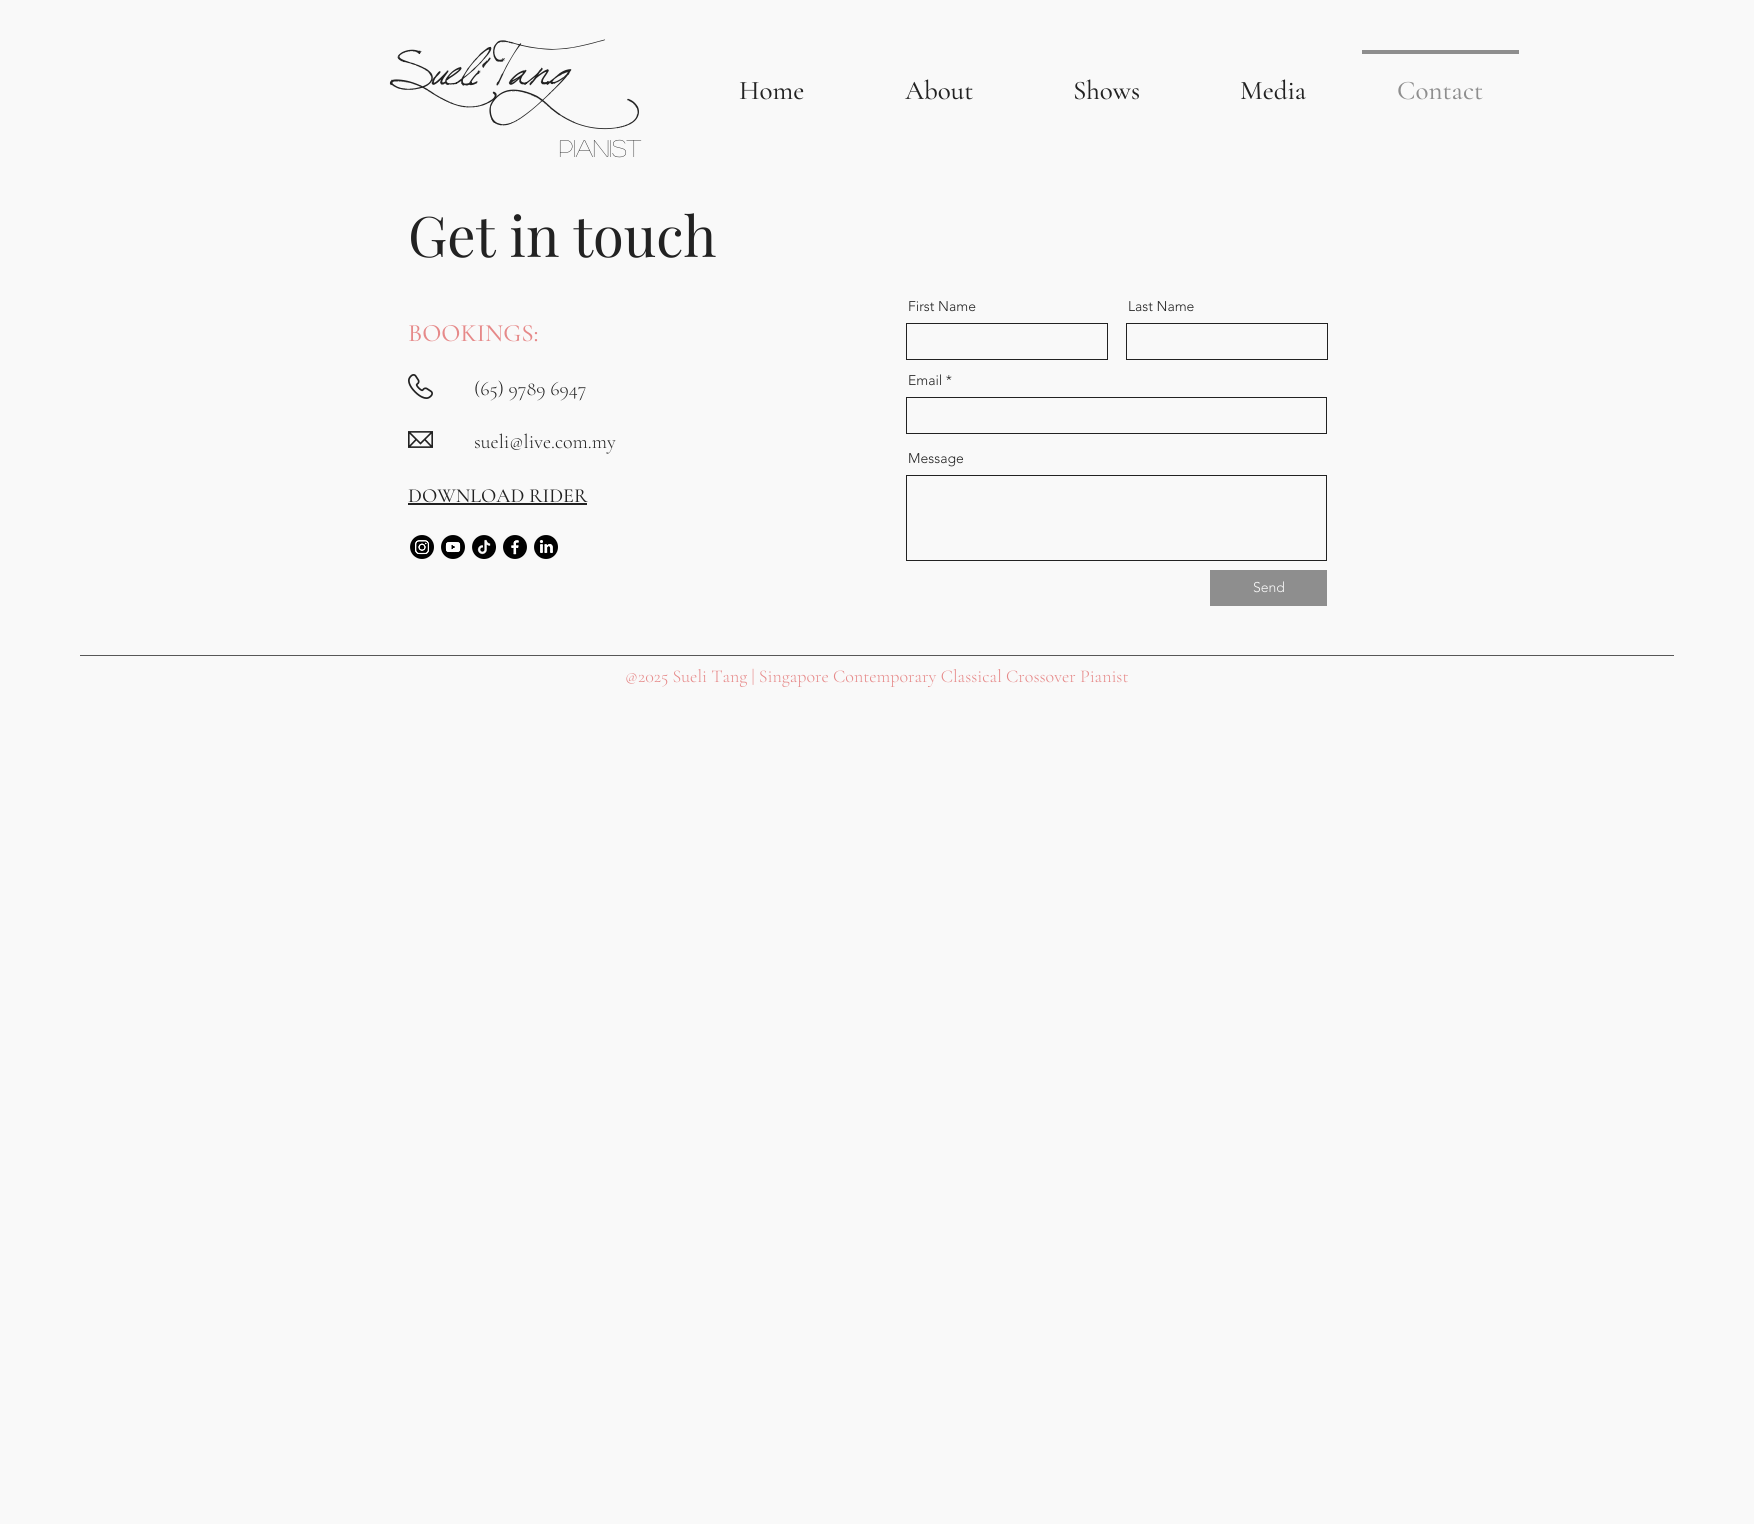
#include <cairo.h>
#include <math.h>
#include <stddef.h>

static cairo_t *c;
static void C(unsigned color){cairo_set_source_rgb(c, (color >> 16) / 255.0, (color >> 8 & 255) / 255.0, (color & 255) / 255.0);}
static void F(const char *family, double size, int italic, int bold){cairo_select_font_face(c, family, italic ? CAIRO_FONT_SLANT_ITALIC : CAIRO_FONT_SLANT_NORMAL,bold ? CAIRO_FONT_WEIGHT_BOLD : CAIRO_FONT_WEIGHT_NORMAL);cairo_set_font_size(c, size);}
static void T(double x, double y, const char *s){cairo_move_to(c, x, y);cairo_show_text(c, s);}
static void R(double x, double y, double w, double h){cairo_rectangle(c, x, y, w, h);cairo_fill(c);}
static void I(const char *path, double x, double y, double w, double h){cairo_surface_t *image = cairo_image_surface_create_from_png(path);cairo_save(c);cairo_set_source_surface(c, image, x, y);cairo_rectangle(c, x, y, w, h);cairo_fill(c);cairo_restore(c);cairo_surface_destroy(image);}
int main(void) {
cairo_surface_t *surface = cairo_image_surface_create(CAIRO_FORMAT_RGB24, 1754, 1524);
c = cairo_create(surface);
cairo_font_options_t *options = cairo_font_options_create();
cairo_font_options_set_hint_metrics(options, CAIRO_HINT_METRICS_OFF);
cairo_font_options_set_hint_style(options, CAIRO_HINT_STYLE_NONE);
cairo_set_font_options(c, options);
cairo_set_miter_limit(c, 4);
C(0xf9f9f9);
cairo_paint(c);
F("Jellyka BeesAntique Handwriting",65,1,0);
C(0x222222);
T(387,84,"Sueli Tang");
F("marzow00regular",24,0,0);
T(559,157,"Pianist");
F("Cormorant Garamond Medium",27,0,0);
T(739,99,"Home");
T(905,99,"About");
T(1073,99,"Shows");
T(1240,99,"Media");
C(0x8e8e8e);
R(1362,50,157,4);
T(1397,99,"Contact");
F("Playfair Display",56,0,0);
C(0x222222);
T(408,257,"Get in touch");
F("Cormorant Garamond Medium",25,0,0);
C(0xe68989);
T(408,341,"BOOKINGS:");
F("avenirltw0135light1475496 Light",14,0,0);
C(0x222222);
T(908,311,"First Name");
cairo_rectangle(c,906.5,323.5,201,36);
cairo_set_line_width(c,1);
cairo_stroke(c);
T(1128,311,"Last Name");
cairo_rectangle(c,1126.5,323.5,201,36);
cairo_stroke(c);
T(908,385,"Email *");
cairo_rectangle(c,906.5,397.5,420,36);
cairo_stroke(c);
T(908,463,"Message");
cairo_rectangle(c,906.5,475.5,420,85);
cairo_stroke(c);
C(0x8e8e8e);
R(1210,570,117,36);
C(0xf9f9f9);
T(1253,592,"Send");
I("1.png",408,374,25,25);
F("Cormorant Garamond Light",20,0,0);
C(0x222222);
T(474,395,"(65) 9789 6947");
I("2.png",408,431,25,17);
T(474,448,"sueli@live.com.my");
F("Cormorant Garamond Medium",20,0,0);
T(408,502,"DOWNLOAD RIDER");
R(408,503,179,2);
I("3.png",410,535,24,24);
I("4.png",441,535,24,24);
I("5.png",472,535,24,24);
I("6.png",503,535,24,24);
I("7.png",534,535,24,24);
C(0x585858);
R(80,655,1594,1);
F("Cormorant Garamond Light",18,0,0);
C(0xe68989);
T(625,682,"@2025 Sueli Tang | Singapore Contemporary Classical Crossover Pianist");
cairo_surface_write_to_png(surface, "o.png");
cairo_font_options_destroy(options);
cairo_destroy(c);
cairo_surface_destroy(surface);
return 0;
}
